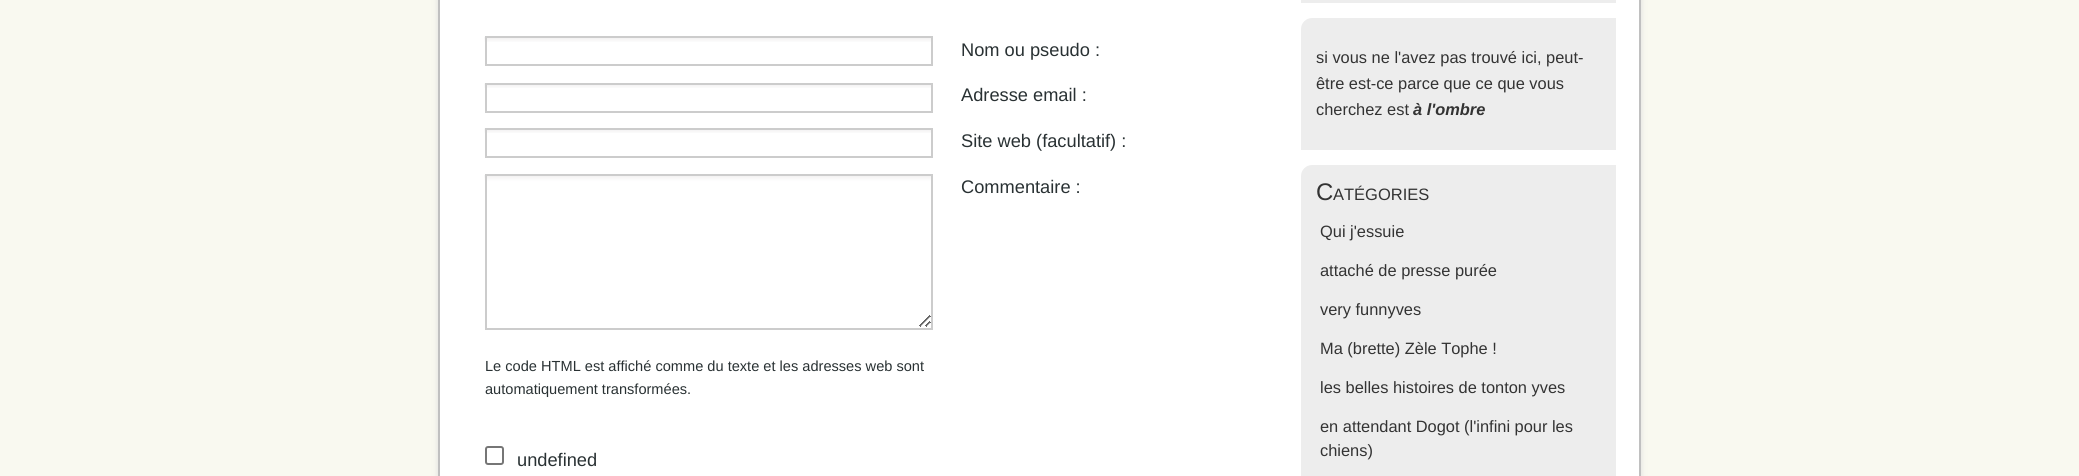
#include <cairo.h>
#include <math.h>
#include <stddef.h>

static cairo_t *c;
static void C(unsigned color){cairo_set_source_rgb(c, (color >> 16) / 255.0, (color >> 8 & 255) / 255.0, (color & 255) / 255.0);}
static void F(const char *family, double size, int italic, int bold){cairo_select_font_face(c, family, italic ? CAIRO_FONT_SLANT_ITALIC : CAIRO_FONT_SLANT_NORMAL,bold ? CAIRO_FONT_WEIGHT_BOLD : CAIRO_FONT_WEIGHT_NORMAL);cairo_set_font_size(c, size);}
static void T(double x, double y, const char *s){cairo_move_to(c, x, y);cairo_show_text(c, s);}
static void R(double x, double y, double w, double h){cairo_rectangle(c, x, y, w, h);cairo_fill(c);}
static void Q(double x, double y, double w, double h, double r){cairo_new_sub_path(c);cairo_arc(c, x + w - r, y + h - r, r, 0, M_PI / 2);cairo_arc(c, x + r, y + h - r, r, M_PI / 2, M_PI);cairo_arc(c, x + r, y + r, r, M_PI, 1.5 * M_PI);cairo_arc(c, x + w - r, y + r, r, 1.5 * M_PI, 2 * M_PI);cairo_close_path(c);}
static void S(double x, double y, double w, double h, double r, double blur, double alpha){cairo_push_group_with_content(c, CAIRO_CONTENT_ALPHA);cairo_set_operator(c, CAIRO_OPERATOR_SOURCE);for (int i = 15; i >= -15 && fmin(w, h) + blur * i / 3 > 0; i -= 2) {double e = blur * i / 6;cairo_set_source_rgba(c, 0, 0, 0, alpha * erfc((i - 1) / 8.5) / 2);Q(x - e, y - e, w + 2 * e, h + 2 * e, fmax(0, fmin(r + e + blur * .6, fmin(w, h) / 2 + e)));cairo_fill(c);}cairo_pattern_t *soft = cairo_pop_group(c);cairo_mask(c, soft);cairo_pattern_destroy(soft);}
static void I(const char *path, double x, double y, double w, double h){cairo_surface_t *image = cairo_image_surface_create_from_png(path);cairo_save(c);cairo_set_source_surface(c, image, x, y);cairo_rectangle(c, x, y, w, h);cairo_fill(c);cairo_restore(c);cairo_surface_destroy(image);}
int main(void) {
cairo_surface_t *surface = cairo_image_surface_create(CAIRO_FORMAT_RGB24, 2079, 476);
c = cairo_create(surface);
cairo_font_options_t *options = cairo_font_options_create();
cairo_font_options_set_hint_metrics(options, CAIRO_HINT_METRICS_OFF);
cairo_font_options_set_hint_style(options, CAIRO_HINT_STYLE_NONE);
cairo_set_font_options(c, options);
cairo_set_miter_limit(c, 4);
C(0xf9f9f0);
cairo_paint(c);
C(0xdcdcdc);
S(438,-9,1203,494,0,3,1);
C(0xffffff);
cairo_rectangle(c,439,-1,1201,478);
cairo_fill_preserve(c);
C(0xc0c0c0);
cairo_stroke(c);
I("1.png",484,37,447,5);
cairo_rectangle(c,486,37,446,28);
C(0xcccccc);
cairo_stroke(c);
F("Liberation Sans",18.25,0,0);
C(0x293133);
T(961,56,"Nom ou pseudo :");
I("2.png",484,83,447,5);
cairo_rectangle(c,486,84,446,28);
C(0xcccccc);
cairo_stroke(c);
C(0x293133);
T(961,101,"Adresse email :");
I("2.png",484,128,447,5);
cairo_rectangle(c,486,129,446,28);
C(0xcccccc);
cairo_stroke(c);
C(0x293133);
T(961,147,"Site web (facultatif) :");
I("3.png",484,175,447,152);
cairo_rectangle(c,486,175,446,154);
C(0xcccccc);
cairo_stroke(c);
C(0x293133);
T(961,193,"Commentaire :");
F("Liberation Sans",14.6,0,0);
T(485,371,"Le code HTML est affiché comme du texte et les adresses web sont");
T(485,394,"automatiquement transformées.");
Q(486,447,17,17,2);
C(0x767676);
cairo_stroke(c);
F("Liberation Sans",18.25,0,0);
C(0x293133);
T(517,466,"undefined");
C(0xededed);
R(1301,0,315,3);
cairo_new_path(c);
cairo_move_to(c,1312,18);
cairo_line_to(c,1616,18);
cairo_line_to(c,1616,150);
cairo_line_to(c,1301,150);
cairo_line_to(c,1301,29);
cairo_curve_to(c,1301,23,1306,18,1312,18);
cairo_close_path(c);
cairo_fill(c);
F("Liberation Sans",16.4,0,0);
C(0x333333);
T(1316,63,"si vous ne l'avez pas trouvé ici, peut-");
T(1316,89,"être est-ce parce que ce que vous");
T(1316,115,"cherchez est");
F("Liberation Sans",16.4,1,1);
T(1413,115,"à l'ombre");
C(0xededed);
cairo_new_path(c);
cairo_move_to(c,1312,165);
cairo_line_to(c,1616,165);
cairo_line_to(c,1616,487);
cairo_line_to(c,1301,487);
cairo_line_to(c,1301,176);
cairo_curve_to(c,1301,170,1306,165,1312,165);
cairo_close_path(c);
cairo_fill(c);
F("Liberation Sans",24,0,0);
C(0x333333);
T(1316,200,"C");
F("Liberation Sans",16.5,0,0);
T(1333,200,"ATÉGORIES");
F("Liberation Sans",16.4,0,0);
T(1320,237,"Qui j'essuie");
T(1320,276,"attaché de presse purée");
T(1320,315,"very funnyves");
T(1320,354,"Ma (brette) Zèle Tophe !");
T(1320,393,"les belles histoires de tonton yves");
T(1320,432,"en attendant Dogot (l'infini pour les");
T(1320,456,"chiens)");
cairo_surface_write_to_png(surface, "o.png");
cairo_font_options_destroy(options);
cairo_destroy(c);
cairo_surface_destroy(surface);
return 0;
}
